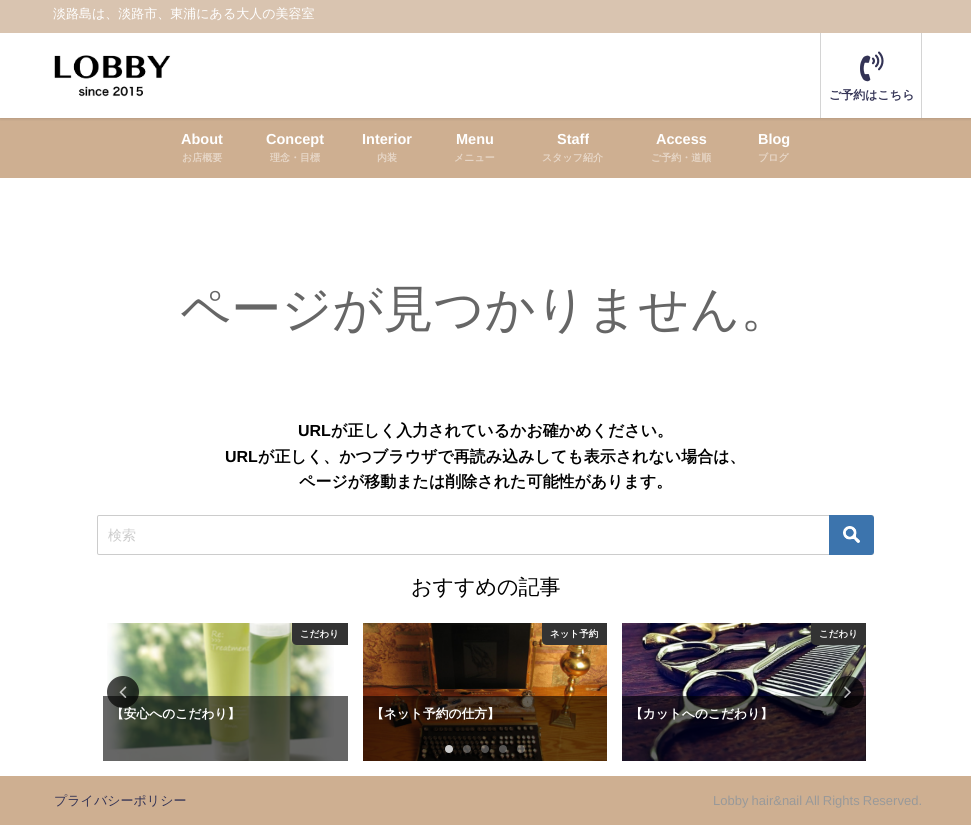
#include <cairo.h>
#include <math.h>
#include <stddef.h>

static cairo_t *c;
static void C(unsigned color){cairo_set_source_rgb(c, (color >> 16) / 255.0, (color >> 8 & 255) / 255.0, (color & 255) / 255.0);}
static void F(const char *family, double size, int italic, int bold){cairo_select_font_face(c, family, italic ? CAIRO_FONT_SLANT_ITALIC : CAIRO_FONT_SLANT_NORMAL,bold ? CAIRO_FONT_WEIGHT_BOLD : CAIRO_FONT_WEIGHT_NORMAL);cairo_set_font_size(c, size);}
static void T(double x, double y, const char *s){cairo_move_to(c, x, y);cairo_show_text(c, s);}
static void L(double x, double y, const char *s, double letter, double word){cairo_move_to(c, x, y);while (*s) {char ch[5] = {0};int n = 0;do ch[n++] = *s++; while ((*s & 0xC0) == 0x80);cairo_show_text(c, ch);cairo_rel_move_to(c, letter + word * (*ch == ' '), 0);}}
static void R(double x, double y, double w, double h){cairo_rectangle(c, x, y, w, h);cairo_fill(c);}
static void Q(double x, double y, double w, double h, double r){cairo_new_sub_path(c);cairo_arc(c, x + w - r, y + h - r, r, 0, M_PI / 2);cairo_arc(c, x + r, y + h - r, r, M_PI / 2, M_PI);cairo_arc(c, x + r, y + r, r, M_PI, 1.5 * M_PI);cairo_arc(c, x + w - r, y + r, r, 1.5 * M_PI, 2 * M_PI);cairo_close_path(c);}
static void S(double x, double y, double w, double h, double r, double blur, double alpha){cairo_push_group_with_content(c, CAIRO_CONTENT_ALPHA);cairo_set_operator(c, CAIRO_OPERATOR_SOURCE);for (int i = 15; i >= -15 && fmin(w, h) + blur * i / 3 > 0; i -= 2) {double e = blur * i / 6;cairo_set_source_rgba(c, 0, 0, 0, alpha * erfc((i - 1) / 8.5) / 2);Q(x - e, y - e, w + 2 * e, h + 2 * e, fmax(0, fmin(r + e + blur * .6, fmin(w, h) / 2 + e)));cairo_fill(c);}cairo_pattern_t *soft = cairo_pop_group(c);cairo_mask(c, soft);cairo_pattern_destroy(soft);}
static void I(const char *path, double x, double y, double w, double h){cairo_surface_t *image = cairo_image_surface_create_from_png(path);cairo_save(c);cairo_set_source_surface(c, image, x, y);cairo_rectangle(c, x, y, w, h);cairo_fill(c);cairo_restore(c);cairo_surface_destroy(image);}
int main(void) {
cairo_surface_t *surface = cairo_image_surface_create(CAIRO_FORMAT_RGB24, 971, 825);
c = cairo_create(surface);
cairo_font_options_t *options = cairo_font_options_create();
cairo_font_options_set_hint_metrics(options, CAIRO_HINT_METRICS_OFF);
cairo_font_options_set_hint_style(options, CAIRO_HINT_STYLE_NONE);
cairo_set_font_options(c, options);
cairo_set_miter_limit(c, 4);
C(0xffffff);
cairo_paint(c);
C(0xceaf91);
R(0,118,971,60);
cairo_save(c);
cairo_rectangle(c,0,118,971,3);
cairo_clip(c);
C(0x000000);
S(0,-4,971,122,0,2,.2);
cairo_restore(c);
C(0xd9c4b0);
R(0,0,971,33);
F("WenQuanYi Zen Hei Medium",13,0,0);
C(0xffffff);
T(53,18,"淡路島は、淡路市、東浦にある大人の美容室");
I("1.png",54,55,117,42);
C(0xd4d4d4);
R(921,33,1,85);
R(820,33,1,85);
I("2.png",860,51,24,31);
F("WenQuanYi Zen Hei",12,0,1);
C(0x333355);
T(829,99,"ご予約はこちら");
F("Liberation Sans",14.5,0,1);
C(0xffffff);
T(181,144,"About");
F("WenQuanYi Zen Hei",10,0,1);
C(0xe7d7c8);
T(182,161,"お店概要");
F("Liberation Sans",14.5,0,1);
C(0xffffff);
T(266,144,"Concept");
F("WenQuanYi Zen Hei",10,0,1);
C(0xe7d7c8);
T(270,161,"理念・目標");
F("Liberation Sans",14.5,0,1);
C(0xffffff);
T(362,144,"Interior");
F("WenQuanYi Zen Hei",10,0,1);
C(0xe7d7c8);
T(377,161,"内装");
F("Liberation Sans",14.5,0,1);
C(0xffffff);
T(456,144,"Menu");
F("WenQuanYi Zen Hei",10,0,1);
C(0xe7d7c8);
T(454,161,"メニュー");
F("Liberation Sans",14.5,0,1);
C(0xffffff);
T(557,144,"Staff");
F("WenQuanYi Zen Hei",10,0,1);
C(0xe7d7c8);
T(542,161,"スタッフ紹介");
F("Liberation Sans",14.5,0,1);
C(0xffffff);
T(656,144,"Access");
F("WenQuanYi Zen Hei",10,0,1);
C(0xe7d7c8);
T(651,161,"ご予約・道順");
F("Liberation Sans",14.5,0,1);
C(0xffffff);
T(758,144,"Blog");
F("WenQuanYi Zen Hei",10,0,1);
C(0xe7d7c8);
T(758,161,"ブログ");
F("WenQuanYi Zen Hei Medium",50,0,0);
C(0x666666);
T(180,326,"ページが見つかりません。");
F("Liberation Sans",16,0,1);
C(0x000000);
T(298,436,"URL");
F("WenQuanYi Zen Hei",16,0,1);
T(331,436,"が正しく入力されているかお確かめください。");
F("Liberation Sans",16,0,1);
T(225,462,"URL");
F("WenQuanYi Zen Hei",16,0,1);
T(258,462,"が正しく、かつブラウザで再読み込みしても表示されない場合は、");
T(299,487,"ページが移動または削除された可能性があります。");
Q(97.5,515.5,776,39,1.5);
C(0xcccccc);
cairo_set_line_width(c,1);
cairo_stroke(c);
F("WenQuanYi Zen Hei Medium",14,0,0);
T(108,540,"検索");
C(0x3c74ad);
cairo_new_path(c);
cairo_move_to(c,829,515);
cairo_line_to(c,871,515);
cairo_curve_to(c,872.5,515,874,516.5,874,518);
cairo_line_to(c,874,552);
cairo_curve_to(c,874,553.5,872.5,555,871,555);
cairo_line_to(c,829,555);
cairo_close_path(c);
cairo_fill(c);
I("3.png",843,526,17,17);
F("WenQuanYi Zen Hei Medium",21,0,0);
C(0x000000);
T(411,594,"おすすめの記事");
I("4.png",107,623,227,138);
C(0x333333);
cairo_new_path(c);
cairo_move_to(c,292,623);
cairo_line_to(c,348,623);
cairo_line_to(c,348,645);
cairo_line_to(c,297,645);
cairo_curve_to(c,294,645,292,643,292,640);
cairo_close_path(c);
cairo_fill(c);
F("WenQuanYi Zen Hei",9.5,0,1);
C(0xffffff);
T(300,637,"こだわり");
cairo_set_source_rgba(c,0,0,0,0.6);
R(103,696,245,65);
F("WenQuanYi Zen Hei",12.75,0,1);
C(0xffffff);
T(111,718,"【安心へのこだわり】");
I("5.png",363,623,244,138);
C(0x333333);
cairo_new_path(c);
cairo_move_to(c,542,623);
cairo_line_to(c,607,623);
cairo_line_to(c,607,645);
cairo_line_to(c,547,645);
cairo_curve_to(c,544,645,542,643,542,640);
cairo_close_path(c);
cairo_fill(c);
F("WenQuanYi Zen Hei",9.5,0,1);
C(0xffffff);
T(550,637,"ネット予約");
cairo_set_source_rgba(c,0,0,0,0.6);
R(363,696,244,65);
F("WenQuanYi Zen Hei",12.75,0,1);
C(0xffffff);
T(371,718,"【ネット予約の仕方】");
I("6.png",622,623,244,138);
C(0x333333);
cairo_new_path(c);
cairo_move_to(c,811,623);
cairo_line_to(c,866,623);
cairo_line_to(c,866,645);
cairo_line_to(c,816,645);
cairo_curve_to(c,813,645,811,643,811,640);
cairo_close_path(c);
cairo_fill(c);
F("WenQuanYi Zen Hei",9.5,0,1);
C(0xffffff);
T(819,637,"こだわり");
cairo_set_source_rgba(c,0,0,0,0.6);
R(622,696,244,65);
F("WenQuanYi Zen Hei",12.75,0,1);
C(0xffffff);
T(630,718,"【カットへのこだわり】");
cairo_set_source_rgba(c,0,0,0,0.7);
cairo_new_path(c);
cairo_arc(c,123,692,16,0,2 * M_PI);
cairo_fill(c);
I("7.png",119,686,8,12);
cairo_arc(c,848,692,16,0,2 * M_PI);
cairo_fill(c);
I("8.png",844,686,7,12);
C(0xcccccc);
cairo_arc(c,449,749,4,0,2 * M_PI);
cairo_fill(c);
cairo_set_source_rgba(c,1,1,1,0.3);
cairo_arc(c,467,749,4,0,2 * M_PI);
cairo_fill(c);
cairo_arc(c,485,749,4,0,2 * M_PI);
cairo_fill(c);
cairo_arc(c,503,749,4,0,2 * M_PI);
cairo_fill(c);
cairo_arc(c,521,749,4,0,2 * M_PI);
cairo_fill(c);
C(0xceaf91);
R(0,776,971,49);
F("WenQuanYi Zen Hei Medium",13,0,0);
C(0x333355);
T(54,805,"プライバシーポリシー");
F("Liberation Sans",13,0,0);
C(0x999999);
L(713,805,"Lobby hair&nail All Rights Reserved.",0,-.5);
cairo_surface_write_to_png(surface, "o.png");
cairo_font_options_destroy(options);
cairo_destroy(c);
cairo_surface_destroy(surface);
return 0;
}
